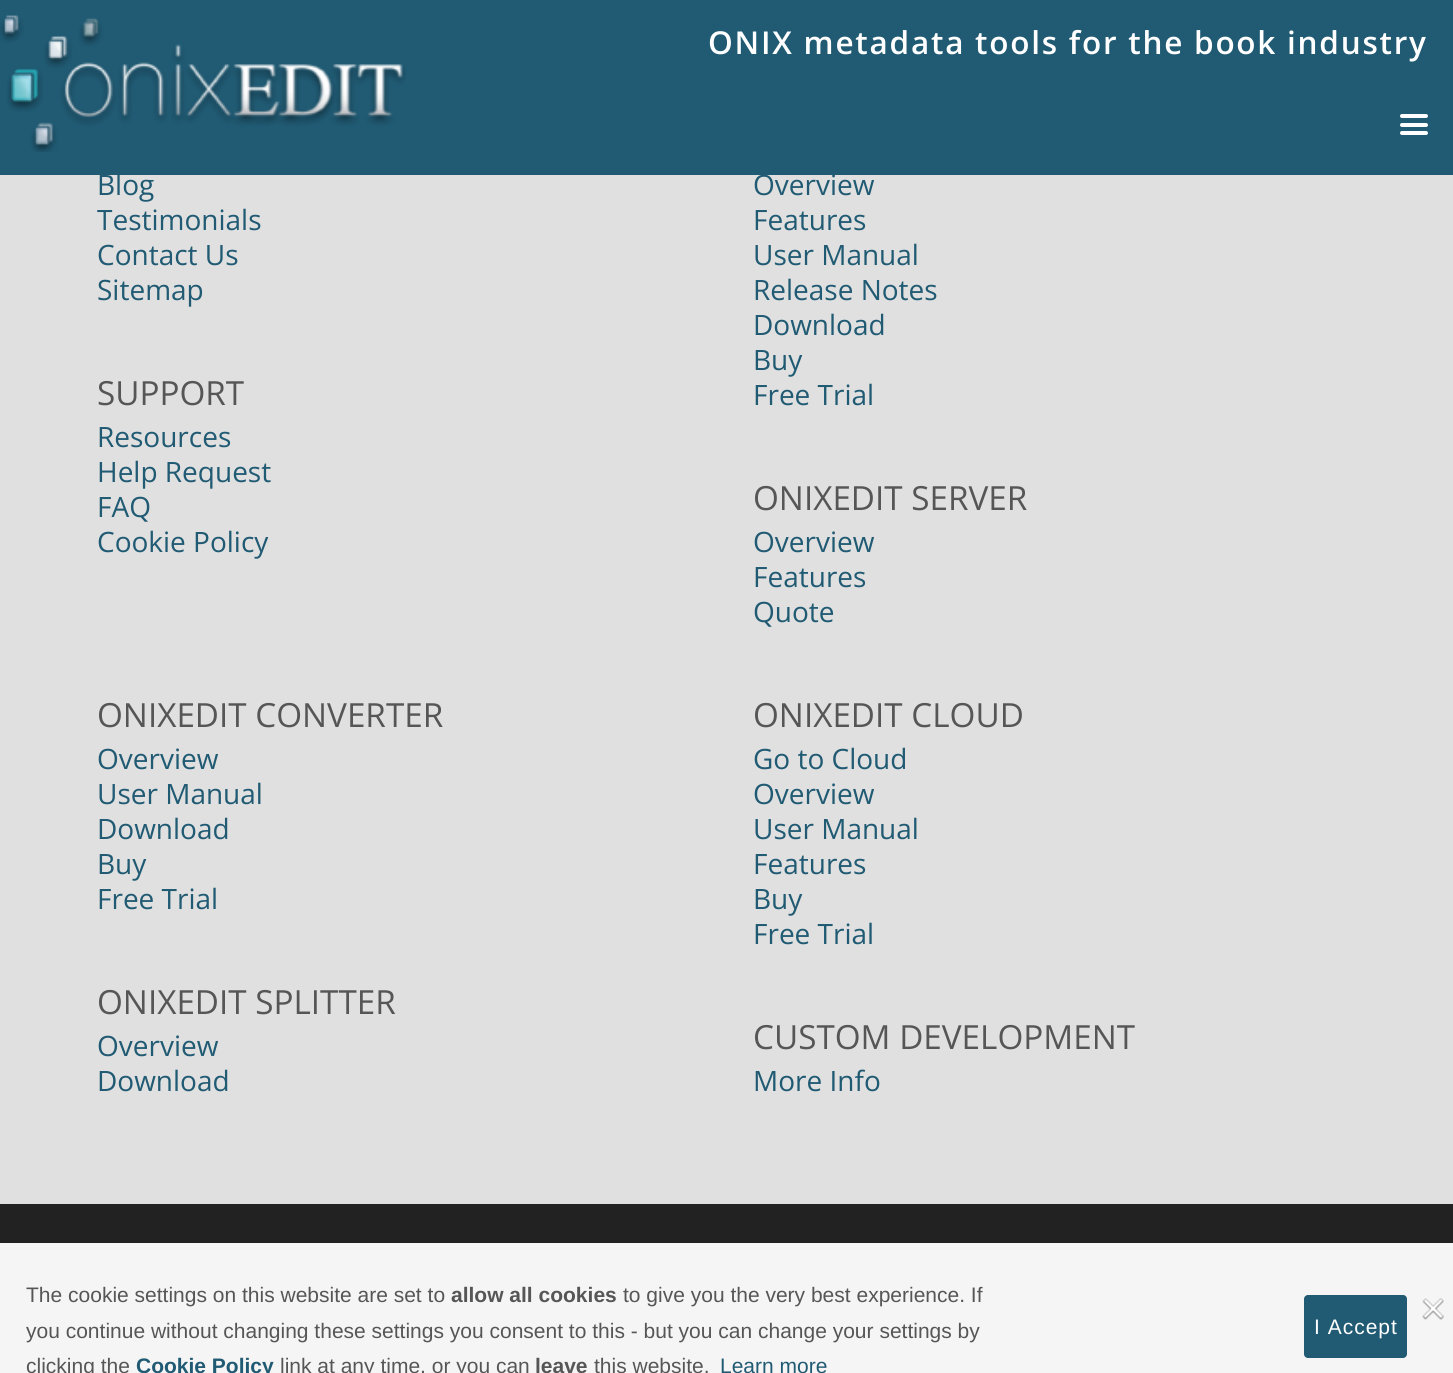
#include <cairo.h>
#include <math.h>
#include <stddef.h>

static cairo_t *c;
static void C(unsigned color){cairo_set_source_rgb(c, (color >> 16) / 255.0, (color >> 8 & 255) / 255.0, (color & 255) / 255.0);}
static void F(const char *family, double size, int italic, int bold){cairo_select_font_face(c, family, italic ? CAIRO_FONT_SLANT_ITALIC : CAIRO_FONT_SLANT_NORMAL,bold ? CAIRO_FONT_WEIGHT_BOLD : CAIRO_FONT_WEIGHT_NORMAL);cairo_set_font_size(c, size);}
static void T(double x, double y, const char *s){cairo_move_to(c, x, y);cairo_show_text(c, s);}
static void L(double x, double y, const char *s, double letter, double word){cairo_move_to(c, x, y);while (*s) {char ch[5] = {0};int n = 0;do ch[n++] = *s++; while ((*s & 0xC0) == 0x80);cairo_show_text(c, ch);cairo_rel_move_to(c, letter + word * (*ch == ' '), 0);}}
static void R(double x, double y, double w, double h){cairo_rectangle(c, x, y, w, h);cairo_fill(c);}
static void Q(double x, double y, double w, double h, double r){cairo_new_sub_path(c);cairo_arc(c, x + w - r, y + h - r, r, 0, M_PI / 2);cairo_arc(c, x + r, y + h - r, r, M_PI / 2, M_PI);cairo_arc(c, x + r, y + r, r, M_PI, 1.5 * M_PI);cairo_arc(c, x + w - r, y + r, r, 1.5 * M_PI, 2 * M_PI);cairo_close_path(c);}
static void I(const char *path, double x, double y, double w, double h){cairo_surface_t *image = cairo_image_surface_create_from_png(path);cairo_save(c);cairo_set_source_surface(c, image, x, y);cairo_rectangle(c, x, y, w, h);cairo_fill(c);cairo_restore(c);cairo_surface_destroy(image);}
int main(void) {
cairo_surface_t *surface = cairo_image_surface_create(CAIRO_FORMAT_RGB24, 1453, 1373);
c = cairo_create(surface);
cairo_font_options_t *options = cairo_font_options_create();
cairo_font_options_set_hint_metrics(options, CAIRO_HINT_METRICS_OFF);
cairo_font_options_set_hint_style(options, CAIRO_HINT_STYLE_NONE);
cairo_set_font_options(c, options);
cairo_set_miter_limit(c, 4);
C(0xe0e0e0);
cairo_paint(c);
C(0x205a73);
R(0,0,1453,175);
I("1.png",0,15,406,137);
F("Open Sans SemiBold",31.5,0,0);
C(0xffffff);
L(708,54,"ONIX metadata tools for the book industry",1.75,0);
Q(1400,123,28,4,2);
cairo_fill(c);
Q(1400,114,28,4,2);
cairo_fill(c);
Q(1400,131,28,4,2);
cairo_fill(c);
F("Open Sans",28,0,0);
C(0x205a73);
T(97,195,"Blog");
T(97,230,"Testimonials");
T(97,265,"Contact Us");
T(97,300,"Sitemap");
F("Open Sans",33.25,0,0);
C(0x565656);
T(97,405,"SUPPORT");
F("Open Sans",28,0,0);
C(0x205a73);
T(97,447,"Resources");
T(97,482,"Help Request");
T(97,517,"FAQ");
T(97,552,"Cookie Policy");
T(753,195,"Overview");
T(753,230,"Features");
T(753,265,"User Manual");
T(753,300,"Release Notes");
T(753,335,"Download");
T(753,370,"Buy");
T(753,405,"Free Trial");
F("Open Sans",33.25,0,0);
C(0x565656);
T(753,510,"ONIXEDIT SERVER");
F("Open Sans",28,0,0);
C(0x205a73);
T(753,552,"Overview");
T(753,587,"Features");
T(753,622,"Quote");
F("Open Sans",33.25,0,0);
C(0x565656);
T(97,727,"ONIXEDIT CONVERTER");
F("Open Sans",28,0,0);
C(0x205a73);
T(97,769,"Overview");
T(97,804,"User Manual");
T(97,839,"Download");
T(97,874,"Buy");
T(97,909,"Free Trial");
F("Open Sans",33.25,0,0);
C(0x565656);
T(97,1014,"ONIXEDIT SPLITTER");
F("Open Sans",28,0,0);
C(0x205a73);
T(97,1056,"Overview");
T(97,1091,"Download");
F("Open Sans",33.25,0,0);
C(0x565656);
T(753,727,"ONIXEDIT CLOUD");
F("Open Sans",28,0,0);
C(0x205a73);
T(753,769,"Go to Cloud");
T(753,804,"Overview");
T(753,839,"User Manual");
T(753,874,"Features");
T(753,909,"Buy");
T(753,944,"Free Trial");
F("Open Sans",33.25,0,0);
C(0x565656);
T(753,1049,"CUSTOM DEVELOPMENT");
F("Open Sans",28,0,0);
C(0x205a73);
T(753,1091,"More Info");
C(0x222222);
R(0,1204,1453,39);
C(0xf5f5f5);
R(0,1243,1453,130);
F("Liberation Sans",21,0,0);
C(0x565656);
T(26,1302,"The cookie settings on this website are set to");
F("Liberation Sans",21,0,1);
T(451,1302,"allow all cookies");
F("Liberation Sans",21,0,0);
T(623,1302,"to give you the very best experience. If");
T(26,1338,"you continue without changing these settings you consent to this - but you can change your settings by");
T(26,1373,"clicking the");
F("Liberation Sans",21,0,1);
C(0x205a73);
T(136,1373,"Cookie Policy");
F("Liberation Sans",21,0,0);
C(0x565656);
T(280,1373,"link at any time, or you can");
F("Liberation Sans",21,0,1);
T(535,1373,"leave");
F("Liberation Sans",21,0,0);
T(594,1373,"this website.");
C(0x205a73);
T(720,1373,"Learn more");
I("2.png",1422,1298,22,22);
Q(1304,1295,103,63,4);
cairo_fill(c);
C(0xffffff);
L(1314,1334,"I Accept",1,0);
cairo_surface_write_to_png(surface, "o.png");
cairo_font_options_destroy(options);
cairo_destroy(c);
cairo_surface_destroy(surface);
return 0;
}
